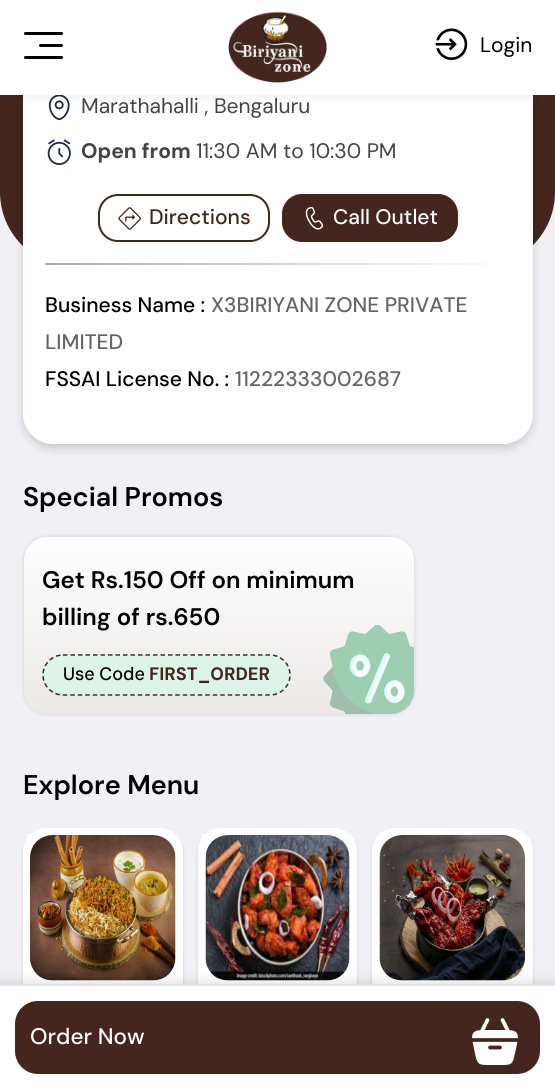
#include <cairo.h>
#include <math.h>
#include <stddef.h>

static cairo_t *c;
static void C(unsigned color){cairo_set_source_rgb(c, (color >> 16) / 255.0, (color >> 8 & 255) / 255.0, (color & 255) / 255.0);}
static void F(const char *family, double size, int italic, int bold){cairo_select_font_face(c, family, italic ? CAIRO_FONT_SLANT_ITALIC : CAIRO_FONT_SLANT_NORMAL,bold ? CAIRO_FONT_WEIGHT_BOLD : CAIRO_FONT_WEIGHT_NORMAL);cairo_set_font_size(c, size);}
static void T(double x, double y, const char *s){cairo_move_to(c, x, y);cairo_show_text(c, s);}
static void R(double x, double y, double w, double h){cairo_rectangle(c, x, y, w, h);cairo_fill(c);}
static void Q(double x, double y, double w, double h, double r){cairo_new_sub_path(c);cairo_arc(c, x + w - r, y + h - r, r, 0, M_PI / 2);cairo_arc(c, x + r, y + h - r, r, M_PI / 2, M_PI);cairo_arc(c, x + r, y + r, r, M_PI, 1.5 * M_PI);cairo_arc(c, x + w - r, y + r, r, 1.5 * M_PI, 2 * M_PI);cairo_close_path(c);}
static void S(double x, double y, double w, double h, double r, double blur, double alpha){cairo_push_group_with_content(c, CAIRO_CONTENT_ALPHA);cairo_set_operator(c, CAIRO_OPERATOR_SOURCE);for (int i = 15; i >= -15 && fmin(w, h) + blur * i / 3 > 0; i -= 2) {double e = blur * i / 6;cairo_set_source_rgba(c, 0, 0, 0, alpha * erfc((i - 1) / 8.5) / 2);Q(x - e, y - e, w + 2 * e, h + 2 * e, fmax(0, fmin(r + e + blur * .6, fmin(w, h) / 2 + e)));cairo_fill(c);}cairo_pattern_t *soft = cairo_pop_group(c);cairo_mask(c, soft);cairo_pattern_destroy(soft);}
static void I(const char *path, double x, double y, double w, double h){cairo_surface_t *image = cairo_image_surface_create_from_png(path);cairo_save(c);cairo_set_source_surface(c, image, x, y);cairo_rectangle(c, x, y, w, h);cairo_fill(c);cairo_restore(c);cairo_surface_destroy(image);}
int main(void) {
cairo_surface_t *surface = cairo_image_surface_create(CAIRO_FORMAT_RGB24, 555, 1088);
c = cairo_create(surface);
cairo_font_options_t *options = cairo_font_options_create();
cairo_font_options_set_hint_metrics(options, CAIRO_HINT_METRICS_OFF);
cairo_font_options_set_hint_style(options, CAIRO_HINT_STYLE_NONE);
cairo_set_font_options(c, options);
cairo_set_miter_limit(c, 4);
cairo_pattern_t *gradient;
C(0xf1f0f5);
cairo_paint(c);
C(0x44261e);
cairo_new_path(c);
cairo_move_to(c,0,-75);
cairo_line_to(c,555,-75);
cairo_line_to(c,555,192);
cairo_curve_to(c,555,233.5,521.5,267,480,267);
cairo_line_to(c,75,267);
cairo_curve_to(c,33.5,267,0,233.5,0,192);
cairo_close_path(c);
cairo_fill(c);
C(0x000000);
S(23,-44,510,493,30,4.5,.16);
C(0xffffff);
Q(23,-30,510,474,30);
cairo_fill(c);
I("3.png",48,95,22,25);
C(0x000000);
S(0,0,555,95,0,6,.1);
C(0xffffff);
R(0,0,555,95);
C(0x000000);
Q(24,32,39,3,1.5);
cairo_fill(c);
Q(39,44,24,3,1.5);
cairo_fill(c);
Q(24,56,39,3,1.5);
cairo_fill(c);
I("1.png",228,11,99,72);
I("2.png",435,28,33,32);
F("DM Sans",21,0,0);
T(480,52,"Login");
C(0x444444);
T(81,113,"Marathahalli , Bengaluru");
I("4.png",47,139,24,26);
F("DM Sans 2",21,0,1);
T(81,158,"Open from");
F("DM Sans",21,0,0);
T(196,158,"11:30 AM to 10:30 PM");
Q(99,195,170,46,19);
C(0x44261e);
cairo_stroke(c);
I("5.png",118,207,23,23);
F("DM Sans 2 Medium",21,0,0);
T(149,224,"Directions");
Q(283,195,174,46,19);
cairo_fill_preserve(c);
cairo_stroke(c);
I("6.png",305,206,19,24);
C(0xffffff);
T(333,224,"Call Outlet");
gradient = cairo_pattern_create_linear(45,263,510,263);
cairo_pattern_add_color_stop_rgba(gradient,0,0.667,0.667,0.667,1);
cairo_pattern_add_color_stop_rgba(gradient,1,1,1,1,1);
cairo_set_source(c,gradient);
cairo_pattern_destroy(gradient);
R(45,263,451,2);
C(0x000000);
T(45,312,"Business Name :");
C(0x666666);
T(211,312,"X3BIRIYANI ZONE PRIVATE");
T(45,349,"LIMITED");
C(0x000000);
T(45,386,"FSSAI License No. :");
C(0x666666);
T(235,386,"11222333002687");
F("DM Sans SemiBold",27,0,0);
C(0x000000);
T(23,506,"Special Promos");
C(0x000000);
S(24,537,390,177,23,2,.15);
C(0xffffff);
Q(24,537,390,177,23);
cairo_fill(c);
gradient = cairo_pattern_create_linear(219,537,219,714);
cairo_pattern_add_color_stop_rgba(gradient,0,1,1,1,.1);
cairo_pattern_add_color_stop_rgba(gradient,1,0.267,0.149,0.118,.1);
cairo_set_source(c,gradient);
cairo_pattern_destroy(gradient);
Q(24,537,390,177,23);
cairo_fill(c);
F("DM Sans 2 SemiBold",24,0,0);
C(0x000000);
T(42,588,"Get Rs.150 Off on minimum");
T(42,625,"billing of rs.650");
C(0xddf5e7);
Q(42,654,249,42,21);
cairo_fill(c);
cairo_new_path(c);
cairo_move_to(c,63,655);
cairo_line_to(c,270,655);
cairo_curve_to(c,281,655,290,664,290,675);
cairo_curve_to(c,290,686,281,695,270,695);
cairo_line_to(c,63,695);
cairo_curve_to(c,52,695,43,686,43,675);
cairo_curve_to(c,43,664,52,655,63,655);
cairo_close_path(c);
C(0x44261e);
cairo_set_line_width(c,1.5);
cairo_set_dash(c,(double[]){4.5,3},2,0);
cairo_stroke(c);
F("DM Sans Medium",18,0,0);
C(0x000000);
T(63,680,"Use Code");
F("DM Sans",18,0,1);
C(0x44261e);
T(149,680,"FIRST_ORDER");
I("7.png",323,625,91,89);
F("DM Sans SemiBold",27,0,0);
C(0x000000);
T(23,794,"Explore Menu");
C(0x000000);
S(23,830,160,243,23,1.5,.15);
C(0xffffff);
Q(23,828,160,243,23);
cairo_fill(c);
I("8.png",28,834,149,147);
C(0x000000);
S(198,830,159,243,23,1.5,.15);
C(0xffffff);
Q(198,828,159,243,23);
cairo_fill(c);
I("9.png",202,834,150,147);
C(0x000000);
S(372,830,161,243,23,1.5,.15);
C(0xffffff);
Q(372,828,161,243,23);
cairo_fill(c);
I("10.png",378,834,147,147);
C(0x000000);
S(0,984,555,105,0,7.5,.16);
C(0xffffff);
R(0,986,555,102);
C(0xe4e4e4);
R(0,984,555,2);
C(0x44261e);
Q(15,1001,525,73,23);
cairo_fill(c);
F("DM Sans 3 Medium",22.5,0,0);
C(0xffffff);
T(30,1044,"Order Now");
I("11.png",472,1018,46,47);
cairo_surface_write_to_png(surface, "o.png");
cairo_font_options_destroy(options);
cairo_destroy(c);
cairo_surface_destroy(surface);
return 0;
}
